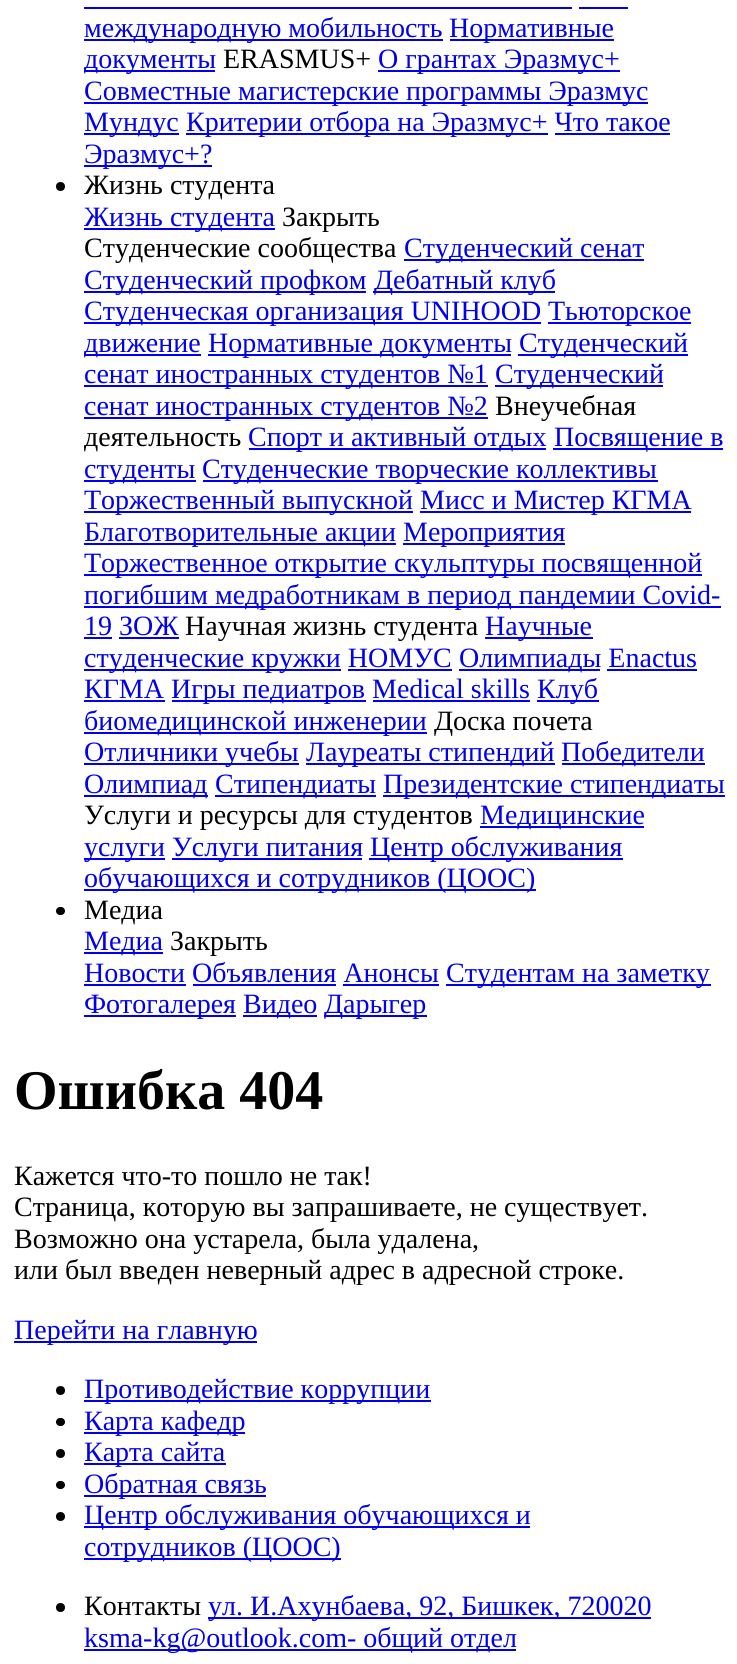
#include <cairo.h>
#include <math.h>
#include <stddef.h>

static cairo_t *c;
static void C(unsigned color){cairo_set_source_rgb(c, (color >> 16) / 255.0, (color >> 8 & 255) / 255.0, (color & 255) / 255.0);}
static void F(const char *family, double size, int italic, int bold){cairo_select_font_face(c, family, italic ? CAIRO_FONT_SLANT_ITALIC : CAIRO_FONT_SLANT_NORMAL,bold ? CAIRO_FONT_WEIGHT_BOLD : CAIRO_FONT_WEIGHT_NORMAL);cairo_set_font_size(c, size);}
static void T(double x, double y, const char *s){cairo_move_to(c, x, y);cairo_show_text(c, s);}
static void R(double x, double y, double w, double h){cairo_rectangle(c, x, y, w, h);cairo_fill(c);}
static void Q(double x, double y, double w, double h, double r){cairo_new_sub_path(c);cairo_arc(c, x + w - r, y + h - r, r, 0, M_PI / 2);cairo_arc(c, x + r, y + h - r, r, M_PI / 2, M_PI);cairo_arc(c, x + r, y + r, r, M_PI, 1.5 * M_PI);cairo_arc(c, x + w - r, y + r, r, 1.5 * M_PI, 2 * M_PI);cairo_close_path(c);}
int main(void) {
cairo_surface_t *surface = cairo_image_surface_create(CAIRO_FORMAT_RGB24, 737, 1664);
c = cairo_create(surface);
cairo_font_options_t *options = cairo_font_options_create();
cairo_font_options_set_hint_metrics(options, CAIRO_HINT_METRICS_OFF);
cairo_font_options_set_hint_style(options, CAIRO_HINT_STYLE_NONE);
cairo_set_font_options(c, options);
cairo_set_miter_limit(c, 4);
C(0xffffff);
cairo_paint(c);
C(0x0000ee);
R(84,39,359,2);
F("Liberation Serif",28,0,0);
T(84,37,"международную мобильность");
R(84,7,488,2);
R(450,39,164,2);
T(449,37,"Нормативные");
R(579,7,49,2);
R(84,70,131,2);
T(84,68,"документы");
C(0x000000);
T(223,68,"ERASMUS+");
C(0x0000ee);
R(378,70,242,2);
T(378,68,"О грантах Эразмус+");
R(84,102,564,2);
T(84,100,"Совместные магистерские программы Эразмус");
R(84,133,95,2);
T(84,131,"Мундус");
R(186,133,362,2);
T(186,131,"Критерии отбора на Эразмус+ Что такое");
R(555,133,115,2);
R(84,165,128,2);
T(84,163,"Эразмус+?");
C(0x000000);
cairo_new_path(c);
cairo_arc(c,60.5,186.5,4.5,0,2 * M_PI);
cairo_fill(c);
T(84,194,"Жизнь студента");
C(0x0000ee);
R(84,228,191,2);
T(84,226,"Жизнь студента");
C(0x000000);
T(282,226,"Закрыть");
T(84,257,"Студенческие сообщества");
C(0x0000ee);
R(404,259,240,2);
T(404,257,"Студенческий сенат");
R(84,291,282,2);
T(84,289,"Студенческий профком");
R(373,291,182,2);
T(374,289,"Дебатный клуб");
R(84,322,457,2);
T(84,320,"Студенческая организация UNIHOOD");
R(548,322,143,2);
T(548,320,"Тьюторское");
R(84,354,117,2);
T(84,352,"движение");
R(208,354,303,2);
T(208,352,"Нормативные документы");
R(518,354,170,2);
T(519,352,"Студенческий");
R(84,385,404,2);
T(84,383,"сенат иностранных студентов №1");
R(495,385,168,2);
T(495,383,"Студенческий");
R(84,417,404,2);
T(84,415,"сенат иностранных студентов №2");
C(0x000000);
T(495,415,"Внеучебная");
T(84,446,"деятельность");
C(0x0000ee);
R(249,448,297,2);
T(248,446,"Спорт и активный отдых");
R(553,448,170,2);
T(554,446,"Посвящение в");
R(84,480,112,2);
T(84,478,"студенты");
R(203,480,455,2);
T(202,478,"Студенческие творческие коллективы");
R(84,511,329,2);
T(84,509,"Торжественный выпускной");
R(420,511,271,2);
T(420,509,"Мисс и Мистер КГМА");
R(84,543,312,2);
T(84,541,"Благотворительные акции");
R(403,543,162,2);
T(403,541,"Мероприятия");
R(84,574,618,2);
T(84,572,"Торжественное открытие скульптуры посвященной");
R(84,606,637,2);
T(84,604,"погибшим медработникам в период пандемии Covid-");
T(84,635,"19 ЗОЖ");
R(84,637,28,2);
R(119,637,60,2);
C(0x000000);
T(185,635,"Научная жизнь студента");
C(0x0000ee);
R(485,637,108,2);
T(485,635,"Научные");
R(84,669,257,2);
T(84,667,"студенческие кружки НОМУС");
R(348,669,104,2);
R(459,669,141,2);
T(459,667,"Олимпиады Enactus");
R(607,669,90,2);
T(84,698,"КГМА");
R(84,700,81,2);
R(172,700,194,2);
T(171,698,"Игры педиатров Medical skills");
R(373,700,157,2);
R(537,700,62,2);
T(537,698,"Клуб");
R(84,732,343,2);
T(84,730,"биомедицинской инженерии");
C(0x000000);
T(434,730,"Доска почета");
C(0x0000ee);
R(84,763,215,2);
T(84,761,"Отличники учебы");
R(306,763,249,2);
T(306,761,"Лауреаты стипендий");
R(562,763,143,2);
T(561,761,"Победители");
R(84,795,124,2);
T(84,793,"Олимпиад");
R(215,795,161,2);
T(215,793,"Стипендиаты");
R(383,795,342,2);
T(383,793,"Президентские стипендиаты");
C(0x000000);
T(84,824,"Услуги и ресурсы для студентов");
C(0x0000ee);
R(480,826,164,2);
T(480,824,"Медицинские");
R(84,858,81,2);
T(84,856,"услуги");
R(172,858,190,2);
T(172,856,"Услуги питания");
R(369,858,254,2);
T(370,856,"Центр обслуживания");
R(84,889,452,2);
T(84,887,"обучающихся и сотрудников (ЦООС)");
C(0x000000);
Q(56,907,9,8,4);
cairo_fill(c);
T(84,919,"Медиа");
C(0x0000ee);
R(84,952,79,2);
T(84,950,"Медиа");
C(0x000000);
T(170,950,"Закрыть");
C(0x0000ee);
T(84,982,"Новости Объявления Анонсы");
R(84,984,102,2);
R(193,984,143,2);
R(446,984,265,2);
T(446,982,"Студентам на заметку");
R(343,984,96,2);
R(84,1015,152,2);
T(84,1013,"Фотогалерея");
R(243,1015,74,2);
T(243,1013,"Видео");
R(324,1015,103,2);
T(324,1013,"Дарыгер");
F("Liberation Serif",56,0,1);
C(0x000000);
T(14,1109,"Ошибка 404");
F("Liberation Serif",28,0,0);
T(14,1185,"Кажется что-то пошло не так!");
T(14,1216,"Страница, которую вы запрашиваете, не существует.");
T(14,1248,"Возможно она устарела, была удалена,");
T(14,1279,"или был введен неверный адрес в адресной строке.");
C(0x0000ee);
R(14,1341,243,2);
T(14,1339,"Перейти на главную");
C(0x000000);
cairo_new_path(c);
cairo_arc(c,60.5,1390.5,4.5,0,2 * M_PI);
cairo_fill(c);
C(0x0000ee);
R(84,1400,347,2);
T(84,1398,"Противодействие коррупции");
C(0x000000);
Q(56,1418,9,8,4);
cairo_fill(c);
C(0x0000ee);
R(84,1432,161,2);
T(84,1430,"Карта кафедр");
C(0x000000);
cairo_new_path(c);
cairo_arc(c,60.5,1453.5,4.5,0,2 * M_PI);
cairo_fill(c);
C(0x0000ee);
R(84,1463,142,2);
T(84,1461,"Карта сайта");
C(0x000000);
Q(56,1481,9,8,4);
cairo_fill(c);
C(0x0000ee);
R(84,1495,182,2);
T(84,1493,"Обратная связь");
C(0x000000);
cairo_new_path(c);
cairo_arc(c,60.5,1516.5,4.5,0,2 * M_PI);
cairo_fill(c);
C(0x0000ee);
R(84,1526,446,2);
T(84,1524,"Центр обслуживания обучающихся и");
R(84,1558,257,2);
T(84,1556,"сотрудников (ЦООС)");
C(0x000000);
cairo_new_path(c);
cairo_arc(c,60.5,1607.5,4.5,0,2 * M_PI);
cairo_fill(c);
T(84,1615,"Контакты");
C(0x0000ee);
R(208,1617,443,2);
T(208,1615,"ул. И.Ахунбаева, 92, Бишкек, 720020");
R(84,1649,432,2);
T(84,1647,"ksma-kg@outlook.com- общий отдел");
cairo_surface_write_to_png(surface, "o.png");
cairo_font_options_destroy(options);
cairo_destroy(c);
cairo_surface_destroy(surface);
return 0;
}
